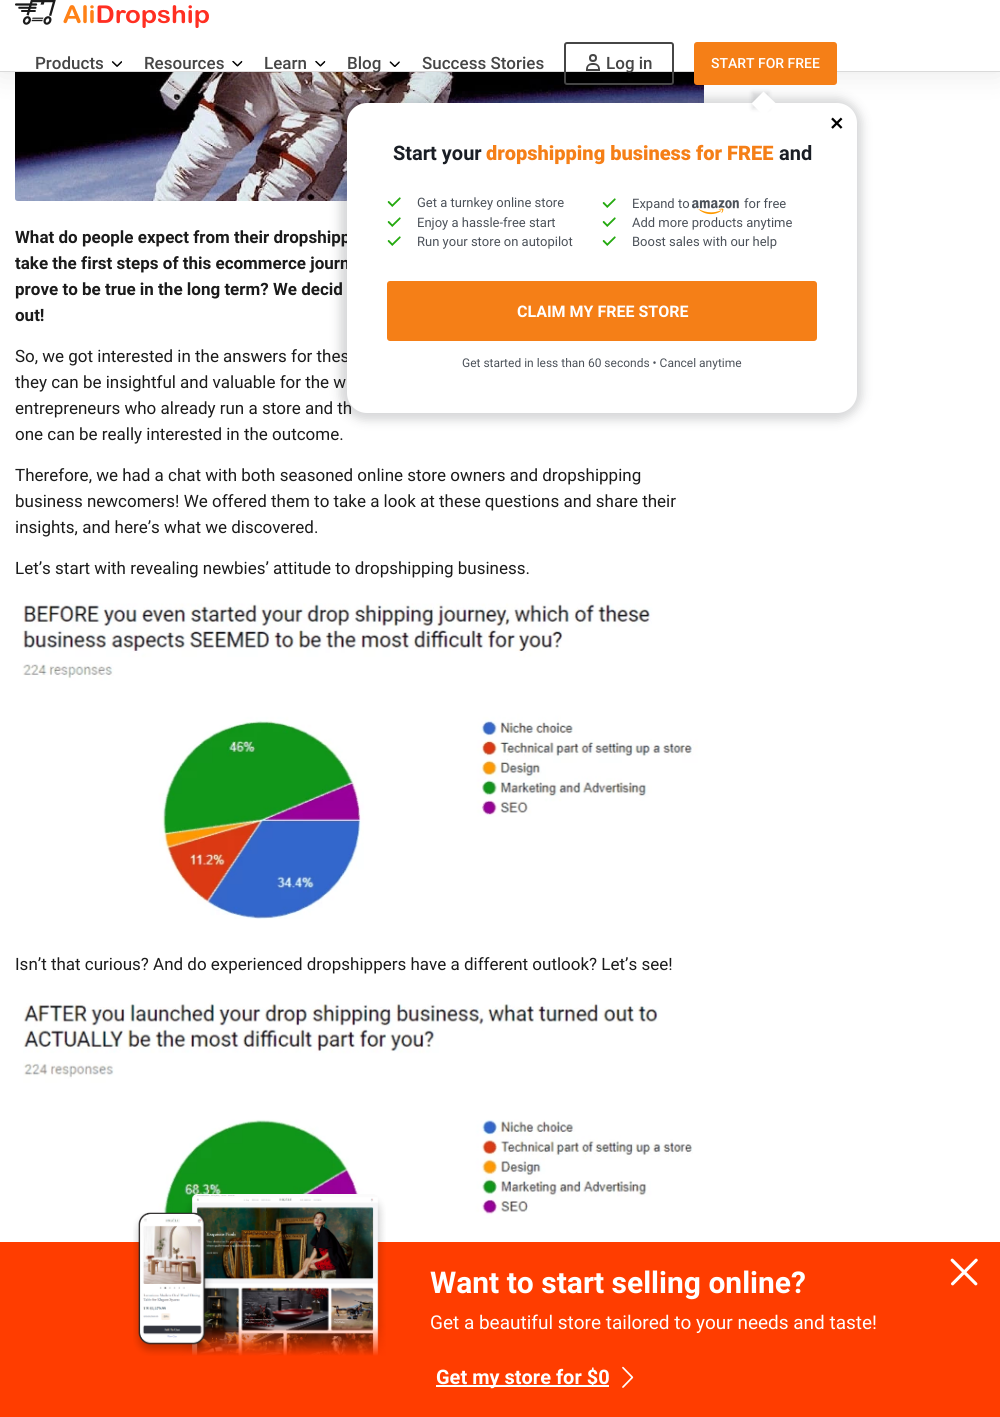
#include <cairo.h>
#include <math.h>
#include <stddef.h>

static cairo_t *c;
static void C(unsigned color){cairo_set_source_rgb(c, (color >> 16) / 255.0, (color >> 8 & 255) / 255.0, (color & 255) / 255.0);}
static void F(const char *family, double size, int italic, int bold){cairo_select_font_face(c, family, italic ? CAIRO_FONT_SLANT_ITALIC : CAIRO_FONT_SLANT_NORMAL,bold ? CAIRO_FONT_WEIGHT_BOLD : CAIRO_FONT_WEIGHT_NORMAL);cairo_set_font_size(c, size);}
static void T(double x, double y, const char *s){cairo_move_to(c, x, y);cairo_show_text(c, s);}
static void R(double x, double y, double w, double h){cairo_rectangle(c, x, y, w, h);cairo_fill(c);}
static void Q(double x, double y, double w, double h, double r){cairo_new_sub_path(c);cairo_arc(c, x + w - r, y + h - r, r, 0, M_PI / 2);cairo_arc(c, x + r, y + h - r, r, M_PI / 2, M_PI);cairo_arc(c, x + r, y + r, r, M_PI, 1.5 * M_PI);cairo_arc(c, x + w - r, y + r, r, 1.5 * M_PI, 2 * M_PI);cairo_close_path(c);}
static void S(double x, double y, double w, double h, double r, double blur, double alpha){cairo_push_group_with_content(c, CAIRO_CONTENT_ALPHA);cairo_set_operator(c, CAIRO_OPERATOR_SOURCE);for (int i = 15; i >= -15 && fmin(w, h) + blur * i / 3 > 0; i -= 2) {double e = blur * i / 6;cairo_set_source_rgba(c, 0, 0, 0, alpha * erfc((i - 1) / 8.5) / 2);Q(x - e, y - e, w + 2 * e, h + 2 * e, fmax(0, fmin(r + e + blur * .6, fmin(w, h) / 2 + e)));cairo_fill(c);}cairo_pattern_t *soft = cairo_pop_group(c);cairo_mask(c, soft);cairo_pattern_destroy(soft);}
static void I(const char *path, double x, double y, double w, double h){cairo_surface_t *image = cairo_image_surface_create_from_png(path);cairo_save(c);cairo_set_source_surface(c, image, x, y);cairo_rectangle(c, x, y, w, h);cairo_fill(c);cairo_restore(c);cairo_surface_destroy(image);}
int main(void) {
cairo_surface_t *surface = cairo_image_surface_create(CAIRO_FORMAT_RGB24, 1000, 1417);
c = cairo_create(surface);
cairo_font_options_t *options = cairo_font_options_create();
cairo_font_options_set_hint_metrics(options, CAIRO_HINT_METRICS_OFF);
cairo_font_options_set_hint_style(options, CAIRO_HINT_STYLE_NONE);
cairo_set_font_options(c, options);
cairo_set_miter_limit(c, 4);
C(0xffffff);
cairo_paint(c);
I("9.png",15,72,689,129);
C(0x000000);
S(0,0,1000,72,0,15,.1);
C(0xffffff);
R(0,0,1000,71);
C(0xdadada);
R(0,71,1000,1);
I("1.png",15,0,194,28);
F("Roboto Medium",17,0,0);
C(0x464646);
T(35,69,"Products");
I("2.png",111,61,11,6);
T(144,69,"Resources");
I("3.png",232,60,11,7);
T(264,69,"Learn");
I("4.png",315,60,11,7);
T(347,69,"Blog");
I("5.png",389,61,11,6);
T(422,69,"Success Stories");
Q(565,43,108,41,2);
cairo_stroke(c);
I("6.png",586,54,14,17);
T(606,69,"Log in");
C(0xf57f17);
Q(694,42,143,43,3);
cairo_fill(c);
F("Roboto Medium",14,0,0);
C(0xffffff);
T(711,68,"START FOR FREE");
C(0x1a1e25);
S(340,98,522,322,26,5,.18);
F("Roboto",17,0,1);
C(0x1b1b1b);
T(15,243,"What do people expect from their dropshipp");
T(15,269,"take the first steps of this ecommerce journ");
F("Roboto",17,0,0);
T(15,362,"So, we got interested in the answers for thes");
T(15,414,"entrepreneurs who already run a store and th");
C(0xffffff);
Q(347,103,510,310,20);
cairo_fill(c);
C(0x1a1e25);
S(752,92,17,17,0,2,.13);
C(0xffffff);
cairo_new_path(c);
cairo_move_to(c,763.5,91.5);
cairo_line_to(c,776,103.5);
cairo_line_to(c,763.5,115.5);
cairo_line_to(c,751.5,103.5);
cairo_close_path(c);
cairo_fill(c);
F("DejaVu Sans",18,0,1);
C(0x000000);
T(829,130,"✕");
F("Roboto",20,0,1);
C(0x1a1e25);
T(393,160,"Start your");
F("Roboto Black",20,0,0);
C(0xf57f17);
T(486,160,"dropshipping business for FREE");
F("Roboto",20,0,1);
C(0x1a1e25);
T(779,160,"and");
I("7.png",387,197,14,10);
F("Roboto",13,0,0);
C(0x4b5159);
T(417,207,"Get a turnkey online store");
I("7.png",602,198,14,10);
T(632,208,"Expand to");
I("8.png",692,200,47,15);
T(744,208,"for free");
I("7.png",387,217,14,10);
T(417,227,"Enjoy a hassle-free start");
I("7.png",602,217,14,10);
T(632,227,"Add more products anytime");
I("7.png",387,236,14,10);
T(417,246,"Run your store on autopilot");
I("7.png",602,236,14,10);
T(632,246,"Boost sales with our help");
C(0xf57f17);
Q(387,281,430,60,3);
cairo_fill(c);
F("Roboto",16,0,1);
C(0xffffff);
T(517,317,"CLAIM MY FREE STORE");
F("Roboto",12,0,0);
C(0x4b5159);
T(462,367,"Get started in less than 60 seconds • Cancel anytime");
F("Roboto",17,0,1);
C(0x1b1b1b);
T(15,295,"prove to be true in the long term? We decid");
T(15,321,"out!");
F("Roboto",17,0,0);
T(15,388,"they can be insightful and valuable for the w");
T(15,440,"one can be really interested in the outcome.");
T(15,481,"Therefore, we had a chat with both seasoned online store owners and dropshipping");
T(15,507,"business newcomers! We offered them to take a look at these questions and share their");
T(15,533,"insights, and here’s what we discovered.");
T(15,574,"Let’s start with revealing newbies’ attitude to dropshipping business.");
I("10.png",22,603,676,316);
T(15,970,"Isn’t that curious? And do experienced dropshippers have a different outlook? Let’s see!");
I("11.png",23,1000,670,242);
C(0xff3d00);
R(0,1242,1000,175);
I("12.png",133,1194,253,162);
F("Roboto",30,0,1);
C(0xffffff);
T(430,1293,"Want to start selling online?");
F("Roboto",19,0,0);
T(430,1329,"Get a beautiful store tailored to your needs and taste!");
I("13.png",622,1366,12,22);
R(436,1385,173,2);
F("Roboto",20,0,1);
T(436,1384,"Get my store for $0");
I("14.png",950,1258,28,28);
cairo_surface_write_to_png(surface, "o.png");
cairo_font_options_destroy(options);
cairo_destroy(c);
cairo_surface_destroy(surface);
return 0;
}
